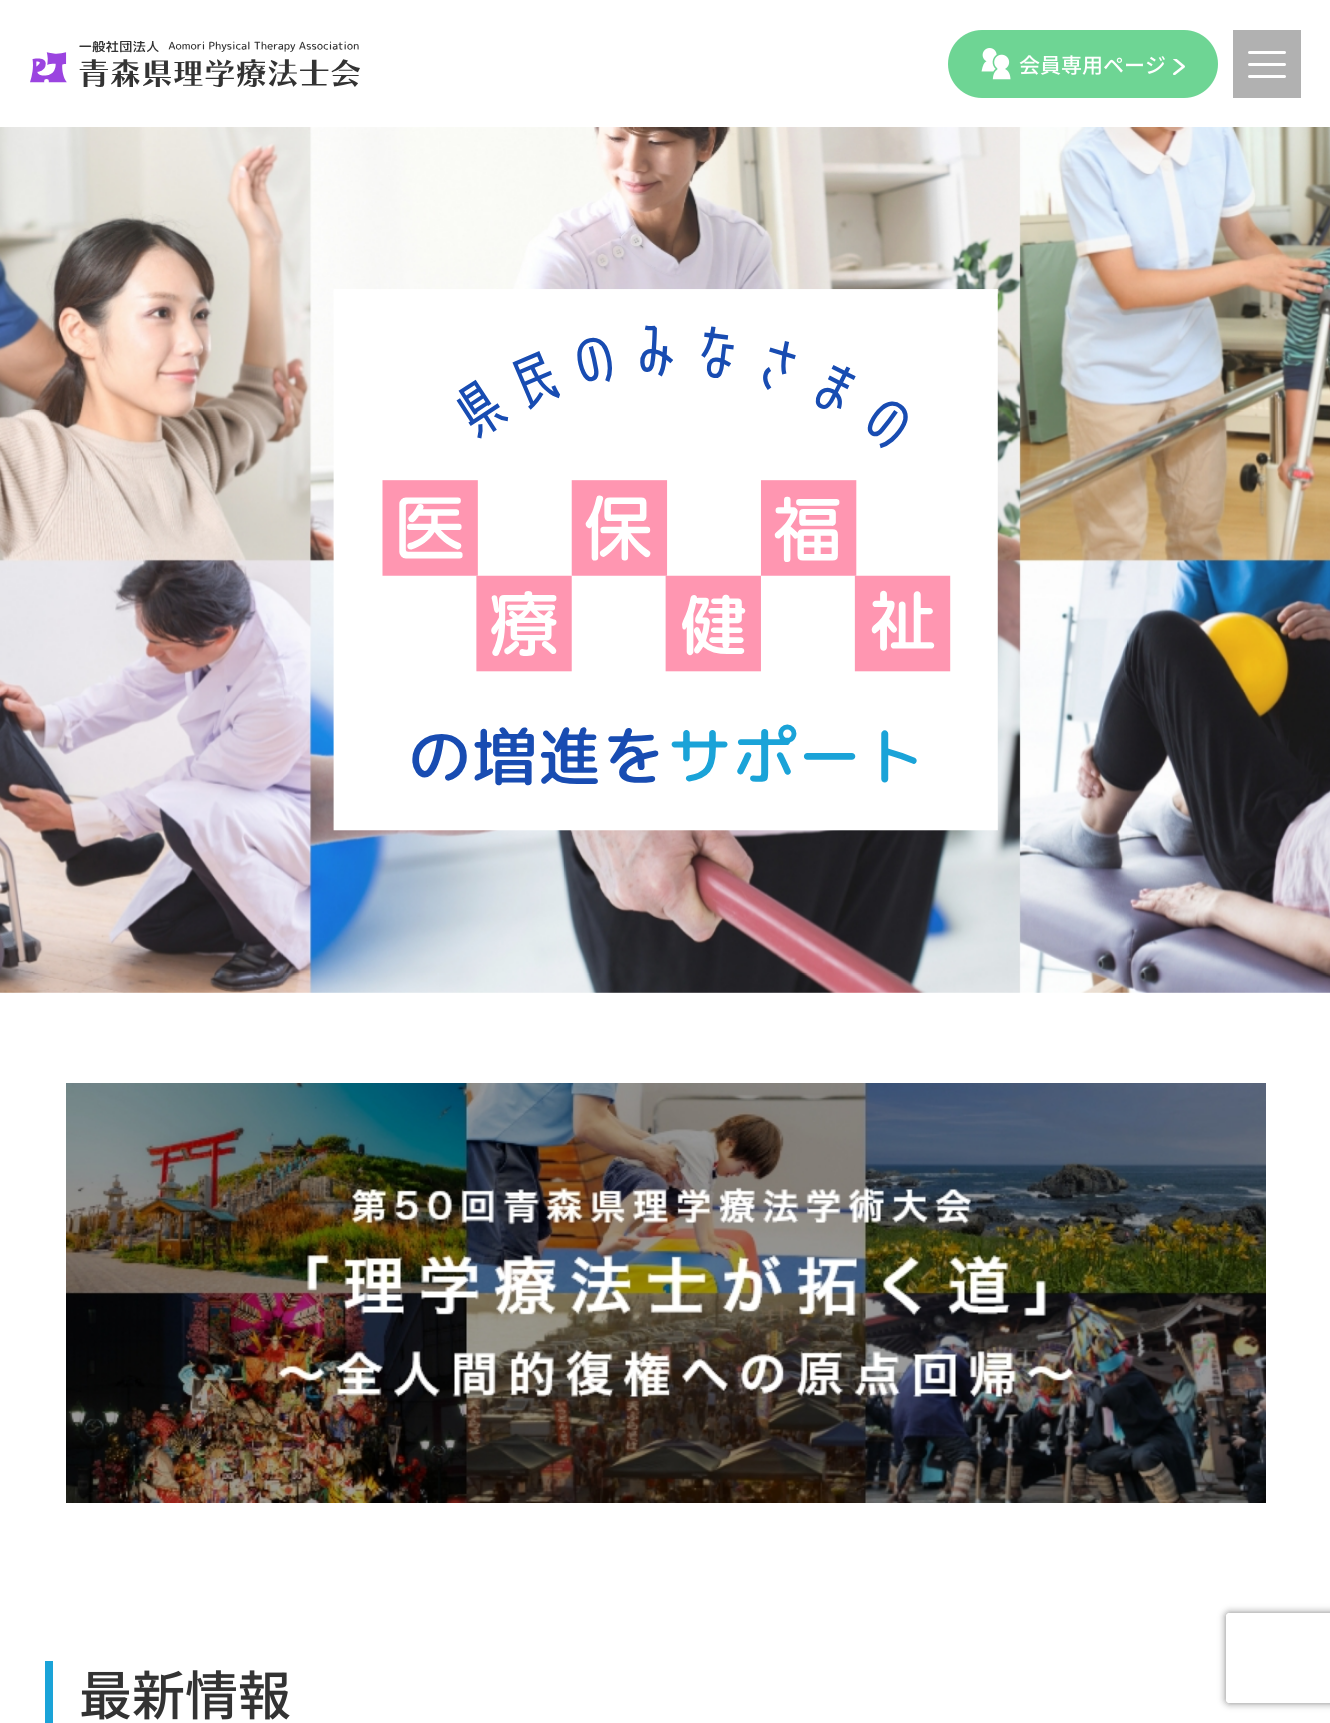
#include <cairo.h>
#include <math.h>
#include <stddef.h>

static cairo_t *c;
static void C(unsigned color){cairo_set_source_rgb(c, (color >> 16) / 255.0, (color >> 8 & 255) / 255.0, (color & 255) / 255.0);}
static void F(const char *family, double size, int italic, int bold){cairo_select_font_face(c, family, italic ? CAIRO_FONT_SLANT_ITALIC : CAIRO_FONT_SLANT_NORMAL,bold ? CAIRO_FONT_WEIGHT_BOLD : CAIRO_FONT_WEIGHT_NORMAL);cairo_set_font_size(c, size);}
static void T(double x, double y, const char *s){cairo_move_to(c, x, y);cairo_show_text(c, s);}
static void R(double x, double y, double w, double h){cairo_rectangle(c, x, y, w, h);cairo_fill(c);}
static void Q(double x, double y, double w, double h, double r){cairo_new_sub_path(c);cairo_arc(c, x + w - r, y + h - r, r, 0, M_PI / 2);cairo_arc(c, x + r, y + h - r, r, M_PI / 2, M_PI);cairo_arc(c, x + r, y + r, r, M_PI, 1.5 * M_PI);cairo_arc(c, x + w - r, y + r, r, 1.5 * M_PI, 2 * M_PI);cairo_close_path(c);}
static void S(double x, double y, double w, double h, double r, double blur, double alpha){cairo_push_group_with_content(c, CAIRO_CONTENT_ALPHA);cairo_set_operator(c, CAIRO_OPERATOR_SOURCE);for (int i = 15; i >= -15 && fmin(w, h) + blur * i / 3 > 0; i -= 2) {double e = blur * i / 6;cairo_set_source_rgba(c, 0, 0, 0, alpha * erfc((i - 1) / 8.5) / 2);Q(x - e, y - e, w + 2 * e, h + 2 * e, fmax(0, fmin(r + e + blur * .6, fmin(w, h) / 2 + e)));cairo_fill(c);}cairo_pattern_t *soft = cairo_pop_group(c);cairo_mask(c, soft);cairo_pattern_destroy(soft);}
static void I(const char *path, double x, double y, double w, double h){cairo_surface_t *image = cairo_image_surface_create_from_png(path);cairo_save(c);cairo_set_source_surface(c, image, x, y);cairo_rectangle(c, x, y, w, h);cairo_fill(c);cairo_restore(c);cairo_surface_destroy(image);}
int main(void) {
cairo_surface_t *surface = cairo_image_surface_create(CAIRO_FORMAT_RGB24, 1330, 1723);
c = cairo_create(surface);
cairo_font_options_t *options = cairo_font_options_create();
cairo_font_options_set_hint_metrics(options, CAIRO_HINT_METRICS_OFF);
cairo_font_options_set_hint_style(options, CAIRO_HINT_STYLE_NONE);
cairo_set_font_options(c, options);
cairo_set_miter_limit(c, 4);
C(0xffffff);
cairo_paint(c);
I("1.png",30,41,330,46);
C(0x6ed594);
Q(948,30,270,68,34);
cairo_fill(c);
I("2.png",981,48,30,32);
F("Noto Sans JP Medium",21,0,0);
C(0xffffff);
T(1019,73,"会員専用ページ");
I("3.png",1173,59,12,16);
C(0xb1b1b1);
R(1233,30,68,68);
C(0xffffff);
Q(1248,51,38,3,1.5);
cairo_fill(c);
Q(1248,63,38,3,1.5);
cairo_fill(c);
Q(1248,75,38,3,1.5);
cairo_fill(c);
I("4.png",0,127,1330,866);
I("5.png",333,289,665,542);
I("6.png",66,1083,1200,420);
C(0x1aa3d8);
R(45,1661,8,62);
F("Noto Sans JP Medium",53,0,0);
C(0x333333);
T(79,1715,"最新情報");
cairo_save(c);
cairo_set_fill_rule(c,CAIRO_FILL_RULE_EVEN_ODD);
cairo_new_path(c);
cairo_move_to(c,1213,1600);
cairo_line_to(c,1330,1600);
cairo_line_to(c,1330,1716);
cairo_line_to(c,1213,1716);
cairo_close_path(c);
cairo_move_to(c,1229,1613);
cairo_line_to(c,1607,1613);
cairo_curve_to(c,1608.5,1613,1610,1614.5,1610,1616);
cairo_line_to(c,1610,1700);
cairo_curve_to(c,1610,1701.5,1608.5,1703,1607,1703);
cairo_line_to(c,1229,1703);
cairo_curve_to(c,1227.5,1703,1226,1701.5,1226,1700);
cairo_line_to(c,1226,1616);
cairo_curve_to(c,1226,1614.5,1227.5,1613,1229,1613);
cairo_close_path(c);
cairo_clip(c);
C(0x808080);
S(1226,1613,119,90,3,4,1);
cairo_restore(c);
cairo_surface_write_to_png(surface, "o.png");
cairo_font_options_destroy(options);
cairo_destroy(c);
cairo_surface_destroy(surface);
return 0;
}
